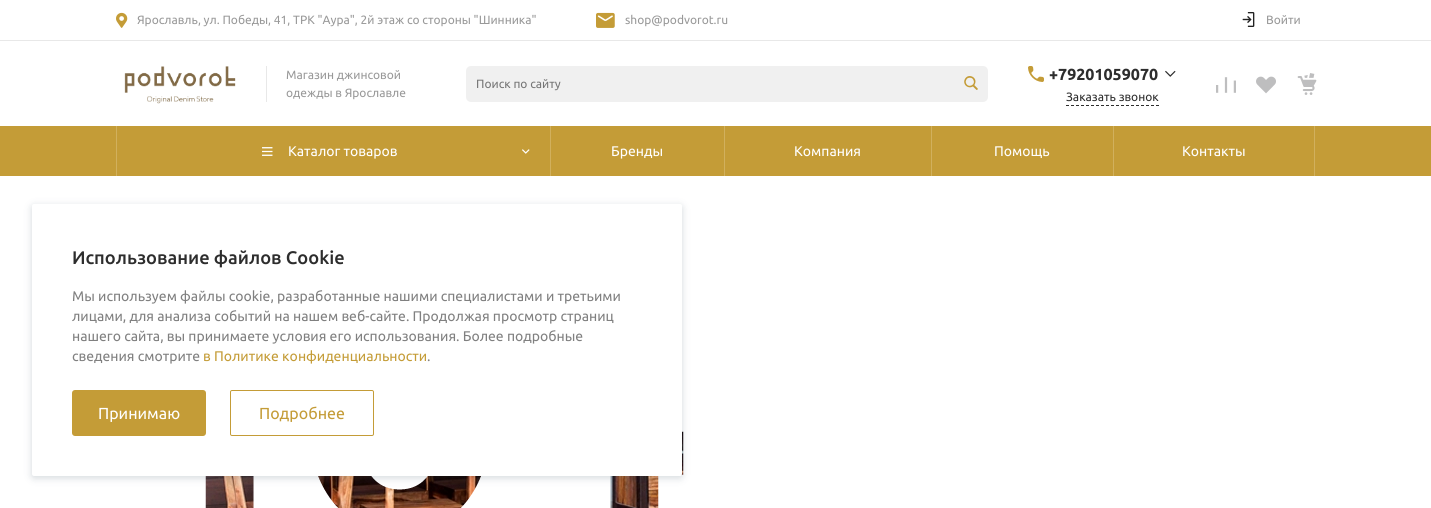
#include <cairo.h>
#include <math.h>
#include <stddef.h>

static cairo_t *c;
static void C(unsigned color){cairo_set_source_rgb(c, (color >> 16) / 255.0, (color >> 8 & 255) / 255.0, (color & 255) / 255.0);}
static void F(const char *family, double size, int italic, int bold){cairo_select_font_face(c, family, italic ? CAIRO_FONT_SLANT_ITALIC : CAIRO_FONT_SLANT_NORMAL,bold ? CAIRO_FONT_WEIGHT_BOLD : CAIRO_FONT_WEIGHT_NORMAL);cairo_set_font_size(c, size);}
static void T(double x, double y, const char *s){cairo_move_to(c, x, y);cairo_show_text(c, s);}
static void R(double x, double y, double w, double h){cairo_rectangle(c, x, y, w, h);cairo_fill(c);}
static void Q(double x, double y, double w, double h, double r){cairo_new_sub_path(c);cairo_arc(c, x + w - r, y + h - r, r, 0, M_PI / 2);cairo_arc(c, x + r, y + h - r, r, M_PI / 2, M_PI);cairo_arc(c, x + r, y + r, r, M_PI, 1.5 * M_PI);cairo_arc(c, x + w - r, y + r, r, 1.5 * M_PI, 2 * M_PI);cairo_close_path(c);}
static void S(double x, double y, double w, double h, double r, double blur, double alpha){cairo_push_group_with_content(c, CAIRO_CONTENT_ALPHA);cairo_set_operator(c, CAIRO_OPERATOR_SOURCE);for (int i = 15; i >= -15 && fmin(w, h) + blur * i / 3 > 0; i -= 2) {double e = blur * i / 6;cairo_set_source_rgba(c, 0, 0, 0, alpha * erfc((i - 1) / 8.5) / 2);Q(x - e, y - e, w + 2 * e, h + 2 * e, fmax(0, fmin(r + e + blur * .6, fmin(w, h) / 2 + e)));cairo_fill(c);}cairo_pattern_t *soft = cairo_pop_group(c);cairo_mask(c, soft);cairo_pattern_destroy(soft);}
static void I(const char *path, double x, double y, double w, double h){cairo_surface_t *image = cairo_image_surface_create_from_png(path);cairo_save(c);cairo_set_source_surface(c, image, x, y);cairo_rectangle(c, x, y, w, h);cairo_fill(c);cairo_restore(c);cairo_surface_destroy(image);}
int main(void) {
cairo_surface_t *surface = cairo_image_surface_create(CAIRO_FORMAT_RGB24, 1431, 508);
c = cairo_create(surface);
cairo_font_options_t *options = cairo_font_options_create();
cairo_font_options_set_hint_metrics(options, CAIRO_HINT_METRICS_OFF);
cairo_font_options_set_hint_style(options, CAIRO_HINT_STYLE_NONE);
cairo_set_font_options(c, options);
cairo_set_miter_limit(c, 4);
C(0xffffff);
cairo_paint(c);
C(0xe8e8e8);
R(0,40,1431,1);
I("1.png",116,12,12,16);
F("Ubuntu",12,0,0);
C(0x999999);
T(137,24,"Ярославль, ул. Победы, 41, ТРК \"Аура\", 2й этаж со стороны \"Шинника\"");
I("2.png",596,12,19,16);
T(625,24,"shop@podvorot.ru");
I("3.png",1242,12,13,15);
T(1266,24,"Войти");
I("4.png",124,66,112,38);
C(0xe8e8e8);
R(266,66,1,36);
C(0x999999);
T(286,79,"Магазин джинсовой");
T(286,97,"одежды в Ярославле");
C(0xf0f0f0);
Q(466,66,522,36,5);
cairo_fill(c);
C(0x757575);
T(476,88,"Поиск по сайту");
I("5.png",964,76,14,14);
I("6.png",1028,66,16,16);
F("Ubuntu",16,0,1);
C(0x2d2d2d);
T(1049,80,"+79201059070");
I("7.png",1165,70,11,7);
cairo_new_path(c);
cairo_move_to(c,1066,105.5);
cairo_line_to(c,1159,105.5);
cairo_set_line_width(c,1);
cairo_set_dash(c,(double[]){3,2},2,0);
cairo_stroke(c);
F("Ubuntu",12,0,0);
T(1066,101,"Заказать звонок");
I("8.png",1216,77,20,16);
I("9.png",1256,76,20,18);
I("10.png",1297,73,20,22);
C(0xc49c37);
R(0,126,1431,50);
C(0xd1b05d);
R(550,126,1,50);
R(116,126,1,50);
I("11.png",262,147,11,9);
F("Ubuntu",14,0,0);
C(0xffffff);
T(288,156,"Каталог товаров");
I("12.png",522,149,8,5);
C(0xd1b05d);
R(724,126,1,50);
C(0xffffff);
T(611,156,"Бренды");
C(0xd1b05d);
R(931,126,1,50);
C(0xffffff);
T(794,156,"Компания");
C(0xd1b05d);
R(1113,126,1,50);
C(0xffffff);
T(994,156,"Помощь");
C(0xd1b05d);
R(1314,126,1,50);
C(0xffffff);
T(1182,156,"Контакты");
I("13.png",205,431,479,77);
C(0x223c50);
S(32,206,650,272,2,4,.2);
C(0xffffff);
Q(32,204,650,272,2);
cairo_fill(c);
F("Ubuntu Medium",18.25,0,0);
C(0x2d2d2d);
T(72,264,"Использование файлов Cookie");
F("Ubuntu",14,0,0);
C(0x808080);
T(72,301,"Мы используем файлы cookie, разработанные нашими специалистами и третьими");
T(72,321,"лицами, для анализа событий на нашем веб-сайте. Продолжая просмотр страниц");
T(72,341,"нашего сайта, вы принимаете условия его использования. Более подробные");
T(72,361,"сведения смотрите");
C(0xc49c37);
T(203,361,"в Политике конфиденциальности");
C(0x808080);
T(427,361,".");
C(0xc49c37);
Q(73,391,132,44,2);
cairo_fill_preserve(c);
cairo_set_line_width(c,2);
cairo_set_dash(c,NULL,0,0);
cairo_stroke(c);
F("Ubuntu",16,0,0);
C(0xffffff);
T(98,419,"Принимаю");
Q(230.5,390.5,143,45,1.5);
C(0xc49c37);
cairo_set_line_width(c,1);
cairo_stroke(c);
T(259,419,"Подробнее");
cairo_surface_write_to_png(surface, "o.png");
cairo_font_options_destroy(options);
cairo_destroy(c);
cairo_surface_destroy(surface);
return 0;
}
